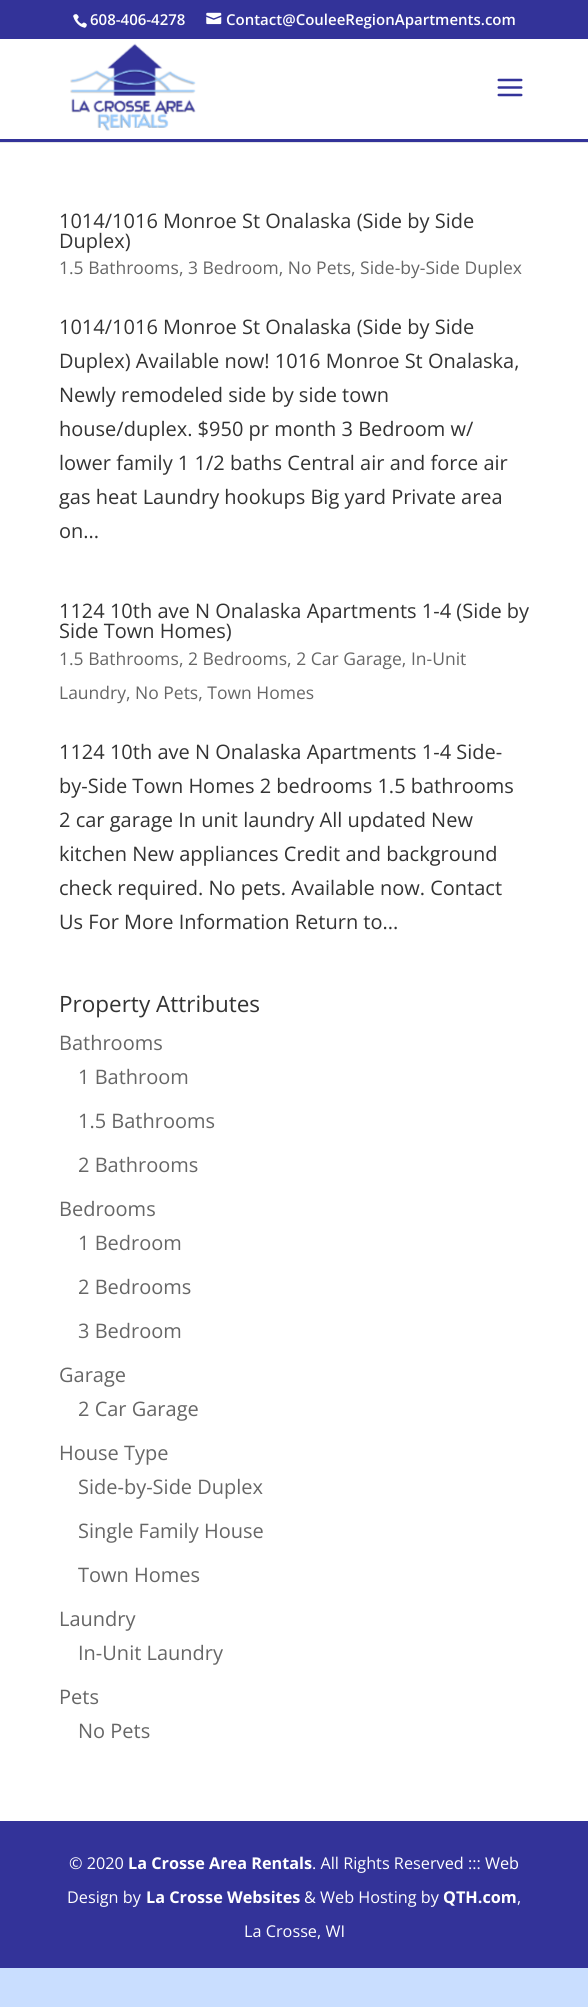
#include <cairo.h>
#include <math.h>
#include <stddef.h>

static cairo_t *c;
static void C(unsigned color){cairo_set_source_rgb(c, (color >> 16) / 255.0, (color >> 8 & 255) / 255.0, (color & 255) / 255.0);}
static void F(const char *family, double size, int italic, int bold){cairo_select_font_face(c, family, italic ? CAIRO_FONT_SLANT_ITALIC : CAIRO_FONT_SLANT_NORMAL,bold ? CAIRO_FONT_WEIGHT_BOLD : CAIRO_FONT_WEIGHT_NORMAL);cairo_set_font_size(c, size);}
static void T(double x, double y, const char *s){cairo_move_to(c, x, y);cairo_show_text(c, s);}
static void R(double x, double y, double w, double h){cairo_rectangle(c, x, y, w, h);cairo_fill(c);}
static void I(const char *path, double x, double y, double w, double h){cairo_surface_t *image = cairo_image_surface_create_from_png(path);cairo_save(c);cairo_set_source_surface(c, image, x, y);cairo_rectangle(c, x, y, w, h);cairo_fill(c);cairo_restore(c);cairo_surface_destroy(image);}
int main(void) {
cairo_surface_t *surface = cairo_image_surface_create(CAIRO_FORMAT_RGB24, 588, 2007);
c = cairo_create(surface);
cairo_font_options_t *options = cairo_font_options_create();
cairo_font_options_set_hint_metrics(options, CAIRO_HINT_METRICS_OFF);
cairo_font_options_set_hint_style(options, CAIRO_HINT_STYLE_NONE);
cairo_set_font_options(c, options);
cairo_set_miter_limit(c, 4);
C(0xc9deff);
cairo_paint(c);
C(0x333399);
R(0,0,588,39);
I("1.png",73,14,14,14);
F("Open Sans SemiBold",15,0,0);
C(0xffffff);
T(90,25,"608-406-4278");
I("2.png",206,12,16,13);
T(226,25,"Contact@CouleeRegionApartments.com");
C(0xe6e6e6);
cairo_new_path(c);
cairo_move_to(c,0,141);
cairo_line_to(c,0,143);
cairo_line_to(c,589,143);
cairo_line_to(c,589,40);
cairo_line_to(c,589,141);
cairo_close_path(c);
cairo_fill(c);
C(0xffffff);
R(0,39,588,100);
C(0x333399);
R(0,139,588,3);
I("3.png",70,43,126,88);
I("4.png",497,78,26,19);
C(0xffffff);
R(0,143,588,1678);
F("Open Sans",20,0,0);
C(0x333333);
T(59,228,"1014/1016 Monroe St Onalaska (Side by Side");
T(59,248,"Duplex)");
F("Open Sans",17.5,0,0);
C(0x666666);
T(59,274,"1.5 Bathrooms, 3 Bedroom, No Pets, Side-by-Side Duplex");
F("Open Sans",20,0,0);
C(0x333333);
T(59,334,"1014/1016 Monroe St Onalaska (Side by Side");
T(59,368,"Duplex) Available now! 1016 Monroe St Onalaska,");
T(59,402,"Newly remodeled side by side town");
T(59,436,"house/duplex. $950 pr month 3 Bedroom w/");
T(59,470,"lower family 1 1/2 baths Central air and force air");
T(59,504,"gas heat Laundry hookups Big yard Private area");
T(59,538,"on...");
T(59,618,"1124 10th ave N Onalaska Apartments 1-4 (Side by");
T(59,638,"Side Town Homes)");
F("Open Sans",17.5,0,0);
C(0x666666);
T(59,665,"1.5 Bathrooms, 2 Bedrooms, 2 Car Garage, In-Unit");
T(59,699,"Laundry, No Pets, Town Homes");
F("Open Sans",20,0,0);
C(0x333333);
T(59,759,"1124 10th ave N Onalaska Apartments 1-4 Side-");
T(59,793,"by-Side Town Homes 2 bedrooms 1.5 bathrooms");
T(59,827,"2 car garage In unit laundry All updated New");
T(59,861,"kitchen New appliances Credit and background");
T(59,895,"check required. No pets. Available now. Contact");
T(59,929,"Us For More Information Return to...");
F("Open Sans",22.5,0,0);
T(59,1012,"Property Attributes");
F("Open Sans",20,0,0);
C(0x666666);
T(59,1050,"Bathrooms");
T(78,1084,"1 Bathroom");
T(78,1128,"1.5 Bathrooms");
T(78,1172,"2 Bathrooms");
T(59,1216,"Bedrooms");
T(78,1250,"1 Bedroom");
T(78,1294,"2 Bedrooms");
T(78,1338,"3 Bedroom");
T(59,1382,"Garage");
T(78,1416,"2 Car Garage");
T(59,1460,"House Type");
T(78,1494,"Side-by-Side Duplex");
T(78,1538,"Single Family House");
T(78,1582,"Town Homes");
T(59,1626,"Laundry");
T(78,1660,"In-Unit Laundry");
T(59,1704,"Pets");
T(78,1738,"No Pets");
C(0x333399);
R(0,1821,588,147);
F("Open Sans",16.25,0,0);
C(0xffffff);
T(69,1869,"© 2020");
F("Open Sans",16.25,0,1);
T(128,1869,"La Crosse Area Rentals");
F("Open Sans",16.25,0,0);
T(312,1869,". All Rights Reserved ::: Web");
T(67,1903,"Design by");
F("Open Sans",16.25,0,1);
T(146,1903,"La Crosse Websites");
F("Open Sans",16.25,0,0);
T(304,1903,"& Web Hosting by");
F("Open Sans",16.25,0,1);
T(443,1903,"QTH.com");
F("Open Sans",16.25,0,0);
T(517,1903,",");
T(244,1937,"La Crosse, WI");
cairo_surface_write_to_png(surface, "o.png");
cairo_font_options_destroy(options);
cairo_destroy(c);
cairo_surface_destroy(surface);
return 0;
}
